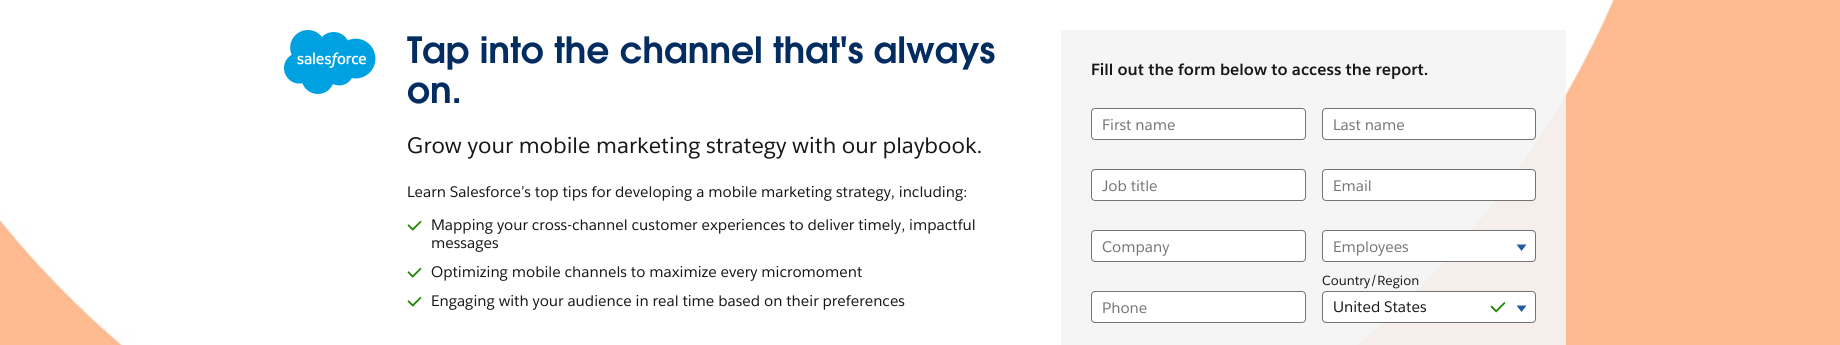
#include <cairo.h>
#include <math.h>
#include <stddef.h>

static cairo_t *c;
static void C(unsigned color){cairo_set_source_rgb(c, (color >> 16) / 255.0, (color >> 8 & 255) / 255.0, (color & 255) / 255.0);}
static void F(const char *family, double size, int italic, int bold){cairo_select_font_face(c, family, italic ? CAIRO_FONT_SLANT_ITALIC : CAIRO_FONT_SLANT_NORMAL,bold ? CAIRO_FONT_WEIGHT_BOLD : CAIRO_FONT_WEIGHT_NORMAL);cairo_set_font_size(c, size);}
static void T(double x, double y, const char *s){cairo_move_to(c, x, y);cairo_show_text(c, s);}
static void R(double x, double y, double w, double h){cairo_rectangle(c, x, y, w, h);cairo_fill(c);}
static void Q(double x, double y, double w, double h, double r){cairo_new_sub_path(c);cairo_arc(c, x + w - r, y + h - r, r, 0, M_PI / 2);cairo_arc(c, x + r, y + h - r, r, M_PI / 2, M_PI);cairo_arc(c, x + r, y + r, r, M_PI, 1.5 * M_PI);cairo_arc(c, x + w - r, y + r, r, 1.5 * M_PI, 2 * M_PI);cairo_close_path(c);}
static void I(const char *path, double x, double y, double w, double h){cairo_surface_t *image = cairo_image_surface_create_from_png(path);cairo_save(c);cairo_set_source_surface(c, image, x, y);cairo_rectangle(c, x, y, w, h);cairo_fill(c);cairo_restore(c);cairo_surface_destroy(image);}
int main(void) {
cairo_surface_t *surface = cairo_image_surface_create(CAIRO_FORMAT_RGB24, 1840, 345);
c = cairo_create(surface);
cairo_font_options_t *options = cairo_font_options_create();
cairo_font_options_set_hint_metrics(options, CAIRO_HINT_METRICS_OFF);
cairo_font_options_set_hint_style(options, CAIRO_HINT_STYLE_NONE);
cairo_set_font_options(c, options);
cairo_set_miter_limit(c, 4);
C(0xffffff);
cairo_paint(c);
I("1.png",0,0,1840,345);
I("2.png",284,30,92,64);
I("3.png",407,36,588,34);
I("4.png",407,82,53,22);
F("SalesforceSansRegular",22,0,0);
C(0x181818);
T(407,153,"Grow your mobile marketing strategy with our playbook.");
F("SalesforceSansRegular",15,0,0);
T(407,197,"Learn Salesforce’s top tips for developing a mobile marketing strategy, including:");
I("5.png",407,220,15,11);
T(431,230,"Mapping your cross-channel customer experiences to deliver timely, impactful");
T(431,248,"messages");
I("5.png",407,267,15,11);
T(431,277,"Optimizing mobile channels to maximize every micromoment");
I("5.png",407,296,15,11);
T(431,306,"Engaging with your audience in real time based on their preferences");
cairo_set_source_rgba(c,0.957,0.957,0.957,0.9);
R(1061,30,505,315);
F("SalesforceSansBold",16,0,1);
C(0x181818);
T(1091,75,"Fill out the form below to access the report.");
C(0xffffff);
Q(1091.5,108.5,214,31,3.5);
cairo_fill_preserve(c);
C(0x747474);
cairo_set_line_width(c,1);
cairo_stroke(c);
F("SalesforceSansRegular",15,0,0);
C(0x767676);
T(1102,130,"First name");
C(0xffffff);
Q(1322.5,108.5,213,31,3.5);
cairo_fill_preserve(c);
C(0x747474);
cairo_stroke(c);
C(0x767676);
T(1333,130,"Last name");
C(0xffffff);
Q(1091.5,169.5,214,31,3.5);
cairo_fill_preserve(c);
C(0x747474);
cairo_stroke(c);
C(0x767676);
T(1102,191,"Job title");
C(0xffffff);
Q(1322.5,169.5,213,31,3.5);
cairo_fill_preserve(c);
C(0x747474);
cairo_stroke(c);
C(0x767676);
T(1333,191,"Email");
C(0xffffff);
Q(1091.5,230.5,214,31,3.5);
cairo_fill_preserve(c);
C(0x747474);
cairo_stroke(c);
C(0x767676);
T(1102,252,"Company");
C(0xffffff);
Q(1322.5,230.5,213,31,3.5);
cairo_fill_preserve(c);
C(0x747474);
cairo_stroke(c);
C(0x767676);
T(1333,252,"Employees");
C(0x215ca0);
cairo_new_path(c);
cairo_move_to(c,1516.5,244.5);
cairo_line_to(c,1526.5,244.5);
cairo_line_to(c,1521.5,251);
cairo_close_path(c);
cairo_fill(c);
C(0xffffff);
Q(1091.5,291.5,214,31,3.5);
cairo_fill_preserve(c);
C(0x747474);
cairo_stroke(c);
C(0x767676);
T(1102,313,"Phone");
F("SalesforceSansRegular",13,0,0);
C(0x181818);
T(1322,285,"Country/Region");
C(0xffffff);
Q(1322.5,291.5,213,31,3.5);
cairo_fill_preserve(c);
C(0x747474);
cairo_stroke(c);
F("SalesforceSansRegular",15,0,0);
C(0x181818);
T(1333,312,"United States");
I("6.png",1490,302,16,11);
C(0x215ca0);
cairo_new_path(c);
cairo_move_to(c,1516.5,305.5);
cairo_line_to(c,1526.5,305.5);
cairo_line_to(c,1521.5,312);
cairo_close_path(c);
cairo_fill(c);
cairo_surface_write_to_png(surface, "o.png");
cairo_font_options_destroy(options);
cairo_destroy(c);
cairo_surface_destroy(surface);
return 0;
}
